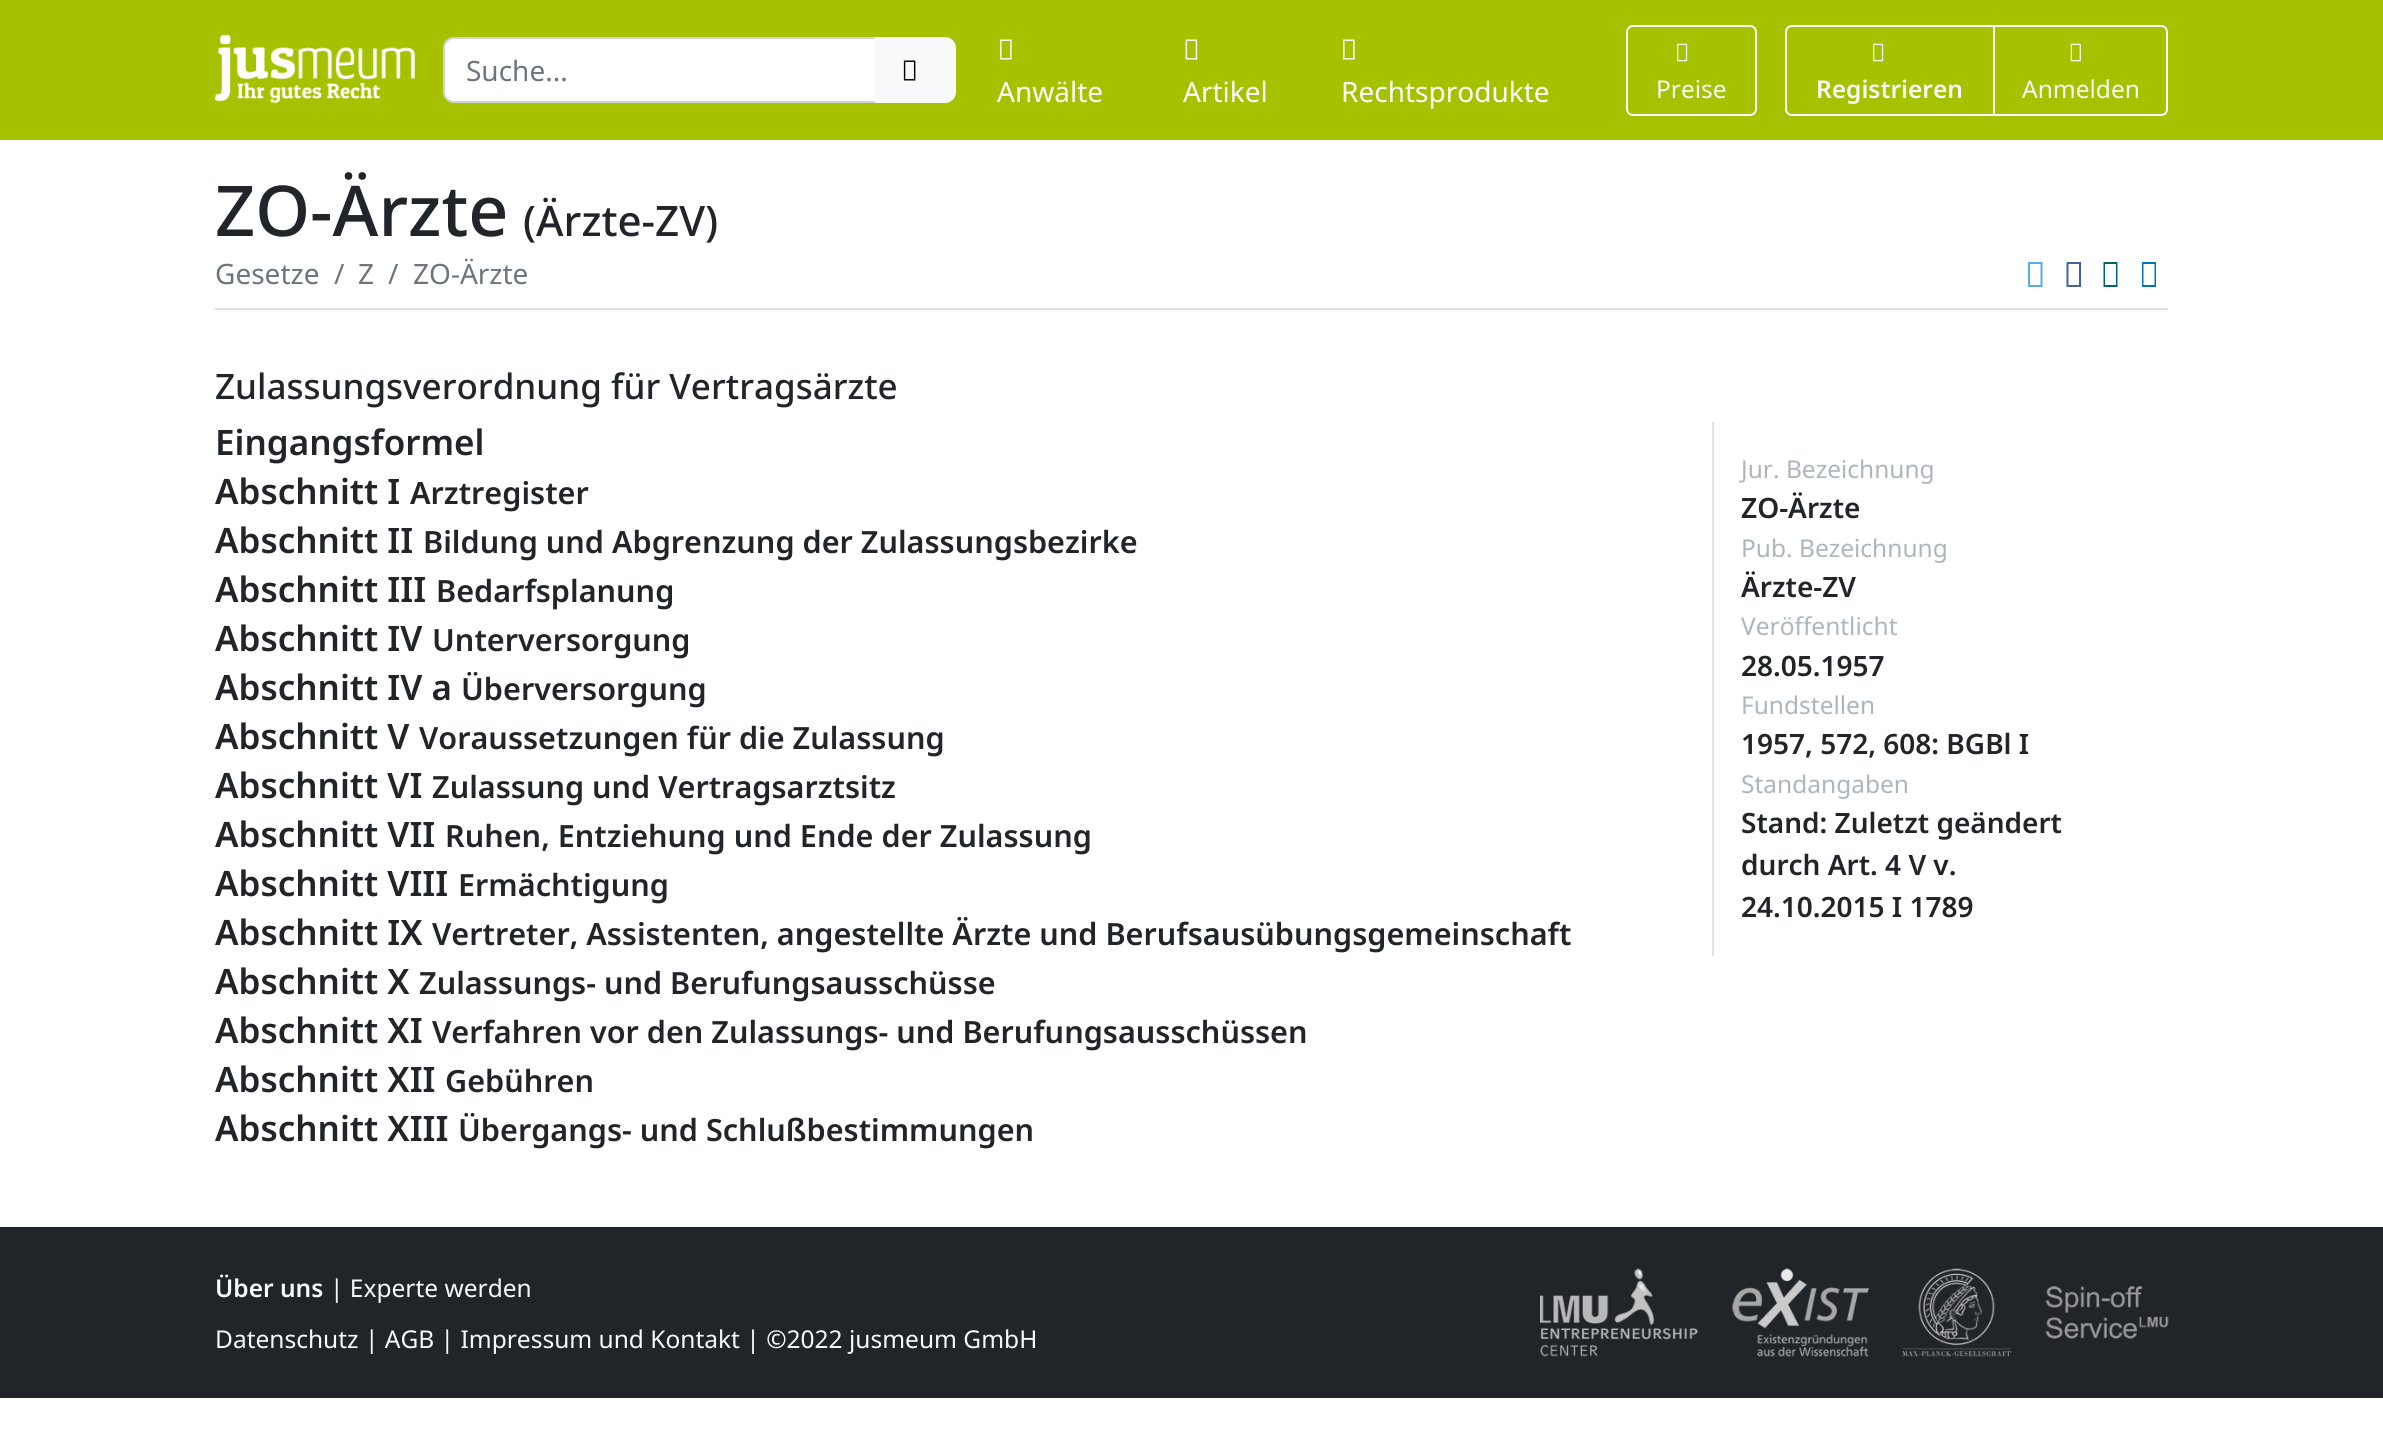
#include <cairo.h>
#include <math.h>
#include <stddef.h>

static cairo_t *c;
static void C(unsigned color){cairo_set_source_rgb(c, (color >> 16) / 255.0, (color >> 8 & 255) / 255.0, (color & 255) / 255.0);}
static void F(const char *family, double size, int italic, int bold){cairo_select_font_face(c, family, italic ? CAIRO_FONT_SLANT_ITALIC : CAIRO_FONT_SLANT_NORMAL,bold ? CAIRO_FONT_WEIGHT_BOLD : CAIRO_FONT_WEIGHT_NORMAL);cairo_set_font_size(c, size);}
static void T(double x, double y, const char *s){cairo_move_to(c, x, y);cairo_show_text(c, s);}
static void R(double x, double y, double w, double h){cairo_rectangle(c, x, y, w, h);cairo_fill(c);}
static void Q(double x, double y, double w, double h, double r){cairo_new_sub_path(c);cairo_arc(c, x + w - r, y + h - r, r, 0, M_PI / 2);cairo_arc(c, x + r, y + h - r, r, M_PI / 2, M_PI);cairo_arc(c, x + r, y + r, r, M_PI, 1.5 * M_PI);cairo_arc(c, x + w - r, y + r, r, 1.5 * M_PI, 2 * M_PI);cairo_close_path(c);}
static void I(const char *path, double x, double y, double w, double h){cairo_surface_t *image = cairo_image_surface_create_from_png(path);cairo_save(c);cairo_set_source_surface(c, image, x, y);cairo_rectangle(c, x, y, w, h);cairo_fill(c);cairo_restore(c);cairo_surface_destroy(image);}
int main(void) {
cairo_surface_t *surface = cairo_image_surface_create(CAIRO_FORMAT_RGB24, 2383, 1448);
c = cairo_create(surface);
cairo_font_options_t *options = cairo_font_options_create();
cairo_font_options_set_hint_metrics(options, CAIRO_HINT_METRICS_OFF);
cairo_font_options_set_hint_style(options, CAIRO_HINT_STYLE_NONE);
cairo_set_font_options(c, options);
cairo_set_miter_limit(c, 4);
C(0xffffff);
cairo_paint(c);
C(0xa5c100);
R(0,0,2383,140);
I("1.png",215,35,200,69);
C(0xffffff);
cairo_new_path(c);
cairo_move_to(c,454,38);
cairo_line_to(c,876,38);
cairo_line_to(c,876,102);
cairo_line_to(c,454,102);
cairo_curve_to(c,448.5,102,444,97.5,444,92);
cairo_line_to(c,444,48);
cairo_curve_to(c,444,42.5,448.5,38,454,38);
cairo_close_path(c);
cairo_fill_preserve(c);
C(0xced4da);
cairo_stroke(c);
F("Noto Sans",28,0,0);
C(0x6c757d);
T(466,81,"Suche...");
C(0xf8f9fa);
cairo_new_path(c);
cairo_move_to(c,876,38);
cairo_line_to(c,945,38);
cairo_curve_to(c,950.5,38,955,42.5,955,48);
cairo_line_to(c,955,92);
cairo_curve_to(c,955,97.5,950.5,102,945,102);
cairo_line_to(c,876,102);
cairo_close_path(c);
cairo_fill_preserve(c);
cairo_stroke(c);
I("2.png",903,60,13,21);
I("3.png",1000,39,12,21);
C(0xffffff);
T(997,102,"Anwälte");
I("4.png",1185,39,13,21);
T(1183,102,"Artikel");
I("3.png",1343,39,12,21);
T(1341,102,"Rechtsprodukte");
Q(1627,26,129,89,6);
C(0xf8f9fa);
cairo_stroke(c);
I("5.png",1677,43,11,19);
F("Noto Sans",24.5,0,0);
T(1656,98,"Preise");
cairo_new_path(c);
cairo_move_to(c,1792,26);
cairo_line_to(c,1994,26);
cairo_line_to(c,1994,115);
cairo_line_to(c,1792,115);
cairo_curve_to(c,1788.5,115,1786,112.5,1786,109);
cairo_line_to(c,1786,32);
cairo_curve_to(c,1786,28.5,1788.5,26,1792,26);
cairo_close_path(c);
cairo_stroke(c);
I("5.png",1873,43,11,19);
F("Noto Sans SemiBold",24.5,0,0);
T(1816,98,"Registrieren");
cairo_new_path(c);
cairo_move_to(c,1994,26);
cairo_line_to(c,2161,26);
cairo_curve_to(c,2164.5,26,2167,28.5,2167,32);
cairo_line_to(c,2167,109);
cairo_curve_to(c,2167,112.5,2164.5,115,2161,115);
cairo_line_to(c,1994,115);
cairo_close_path(c);
cairo_stroke(c);
I("6.png",2070,43,11,19);
F("Noto Sans",24.5,0,0);
T(2022,98,"Anmelden");
F("Noto Sans Medium",70,0,0);
C(0x212529);
T(215,236,"ZO-Ärzte");
F("Noto Sans Medium",42,0,0);
T(523,236,"(Ärzte-ZV)");
C(0xdee2e6);
R(215,308,1953,2);
F("Noto Sans",28,0,0);
C(0x6c757d);
T(215,284,"Gesetze");
T(334,284,"/");
T(358,284,"Z");
T(388,284,"/");
T(413,284,"ZO-Ärzte");
C(0x55acee);
cairo_new_path(c);
cairo_move_to(c,2028,287);
cairo_line_to(c,2028,262);
cairo_line_to(c,2042.5,262);
cairo_line_to(c,2042.5,287);
cairo_close_path(c);
cairo_move_to(c,2030,285);
cairo_line_to(c,2040.5,285);
cairo_line_to(c,2040.5,264);
cairo_line_to(c,2030,264);
cairo_close_path(c);
cairo_fill(c);
C(0x46629e);
cairo_new_path(c);
cairo_move_to(c,2066.5,287);
cairo_line_to(c,2066.5,262);
cairo_line_to(c,2081,262);
cairo_line_to(c,2081,287);
cairo_close_path(c);
cairo_move_to(c,2068.5,285);
cairo_line_to(c,2079,285);
cairo_line_to(c,2079,264);
cairo_line_to(c,2068.5,264);
cairo_close_path(c);
cairo_fill(c);
C(0x006464);
cairo_new_path(c);
cairo_move_to(c,2103.5,287);
cairo_line_to(c,2103.5,262);
cairo_line_to(c,2117.5,262);
cairo_line_to(c,2117.5,287);
cairo_close_path(c);
cairo_move_to(c,2105,285);
cairo_line_to(c,2116,285);
cairo_line_to(c,2116,264);
cairo_line_to(c,2105,264);
cairo_close_path(c);
cairo_fill(c);
C(0x0077b5);
cairo_new_path(c);
cairo_move_to(c,2142,287);
cairo_line_to(c,2142,262);
cairo_line_to(c,2156,262);
cairo_line_to(c,2156,287);
cairo_close_path(c);
cairo_move_to(c,2143.5,285);
cairo_line_to(c,2154.5,285);
cairo_line_to(c,2154.5,264);
cairo_line_to(c,2143.5,264);
cairo_close_path(c);
cairo_fill(c);
F("Noto Sans Medium",35,0,0);
C(0x212529);
T(215,399,"Zulassungsverordnung für Vertragsärzte");
F("Noto Sans SemiBold",35,0,0);
T(215,455,"Eingangsformel");
T(215,504,"Abschnitt I");
F("Noto Sans SemiBold",30.6,0,0);
T(410,504,"Arztregister");
F("Noto Sans SemiBold",35,0,0);
T(215,553,"Abschnitt II");
F("Noto Sans SemiBold",30.6,0,0);
T(423,553,"Bildung und Abgrenzung der Zulassungsbezirke");
F("Noto Sans SemiBold",35,0,0);
T(215,602,"Abschnitt III");
F("Noto Sans SemiBold",30.6,0,0);
T(436,602,"Bedarfsplanung");
F("Noto Sans SemiBold",35,0,0);
T(215,651,"Abschnitt IV");
F("Noto Sans SemiBold",30.6,0,0);
T(432,651,"Unterversorgung");
F("Noto Sans SemiBold",35,0,0);
T(215,700,"Abschnitt IV a");
F("Noto Sans SemiBold",30.6,0,0);
T(461,700,"Überversorgung");
F("Noto Sans SemiBold",35,0,0);
T(215,749,"Abschnitt V");
F("Noto Sans SemiBold",30.6,0,0);
T(419,749,"Voraussetzungen für die Zulassung");
F("Noto Sans SemiBold",35,0,0);
T(215,798,"Abschnitt VI");
F("Noto Sans SemiBold",30.6,0,0);
T(432,798,"Zulassung und Vertragsarztsitz");
F("Noto Sans SemiBold",35,0,0);
T(215,847,"Abschnitt VII");
F("Noto Sans SemiBold",30.6,0,0);
T(445,847,"Ruhen, Entziehung und Ende der Zulassung");
F("Noto Sans SemiBold",35,0,0);
T(215,896,"Abschnitt VIII");
F("Noto Sans SemiBold",30.6,0,0);
T(458,896,"Ermächtigung");
F("Noto Sans SemiBold",35,0,0);
T(215,945,"Abschnitt IX");
F("Noto Sans SemiBold",30.6,0,0);
T(432,945,"Vertreter, Assistenten, angestellte Ärzte und Berufsausübungsgemeinschaft");
F("Noto Sans SemiBold",35,0,0);
T(215,994,"Abschnitt X");
F("Noto Sans SemiBold",30.6,0,0);
T(419,994,"Zulassungs- und Berufungsausschüsse");
F("Noto Sans SemiBold",35,0,0);
T(215,1043,"Abschnitt XI");
F("Noto Sans SemiBold",30.6,0,0);
T(432,1043,"Verfahren vor den Zulassungs- und Berufungsausschüssen");
F("Noto Sans SemiBold",35,0,0);
T(215,1092,"Abschnitt XII");
F("Noto Sans SemiBold",30.6,0,0);
T(445,1092,"Gebühren");
F("Noto Sans SemiBold",35,0,0);
T(215,1141,"Abschnitt XIII");
F("Noto Sans SemiBold",30.6,0,0);
T(458,1141,"Übergangs- und Schlußbestimmungen");
C(0xdee2e6);
R(1712,422,2,534);
F("Noto Sans",24.5,0,0);
C(0xadb5bd);
T(1741,478,"Jur. Bezeichnung");
F("Noto Sans SemiBold",28,0,0);
C(0x212529);
T(1741,518,"ZO-Ärzte");
F("Noto Sans",24.5,0,0);
C(0xadb5bd);
T(1741,557,"Pub. Bezeichnung");
F("Noto Sans SemiBold",28,0,0);
C(0x212529);
T(1741,597,"Ärzte-ZV");
F("Noto Sans",24.5,0,0);
C(0xadb5bd);
T(1741,635,"Veröffentlicht");
F("Noto Sans SemiBold",28,0,0);
C(0x212529);
T(1741,676,"28.05.1957");
F("Noto Sans",24.5,0,0);
C(0xadb5bd);
T(1741,714,"Fundstellen");
F("Noto Sans SemiBold",28,0,0);
C(0x212529);
T(1741,754,"1957, 572, 608: BGBl I");
F("Noto Sans",24.5,0,0);
C(0xadb5bd);
T(1741,793,"Standangaben");
F("Noto Sans SemiBold",28,0,0);
C(0x212529);
T(1741,833,"Stand: Zuletzt geändert");
T(1741,875,"durch Art. 4 V v.");
T(1741,917,"24.10.2015 I 1789");
R(0,1227,2383,171);
F("Noto Sans SemiBold",24.5,0,0);
C(0xf8f9fa);
T(215,1297,"Über uns");
F("Noto Sans",24.5,0,0);
T(330,1297,"| Experte werden");
T(215,1348,"Datenschutz | AGB | Impressum und Kontakt | ©2022 jusmeum GmbH");
I("7.png",1540,1268,158,89);
I("8.png",1732,1268,137,89);
I("9.png",1902,1268,109,89);
I("10.png",2045,1286,124,53);
cairo_surface_write_to_png(surface, "o.png");
cairo_font_options_destroy(options);
cairo_destroy(c);
cairo_surface_destroy(surface);
return 0;
}
